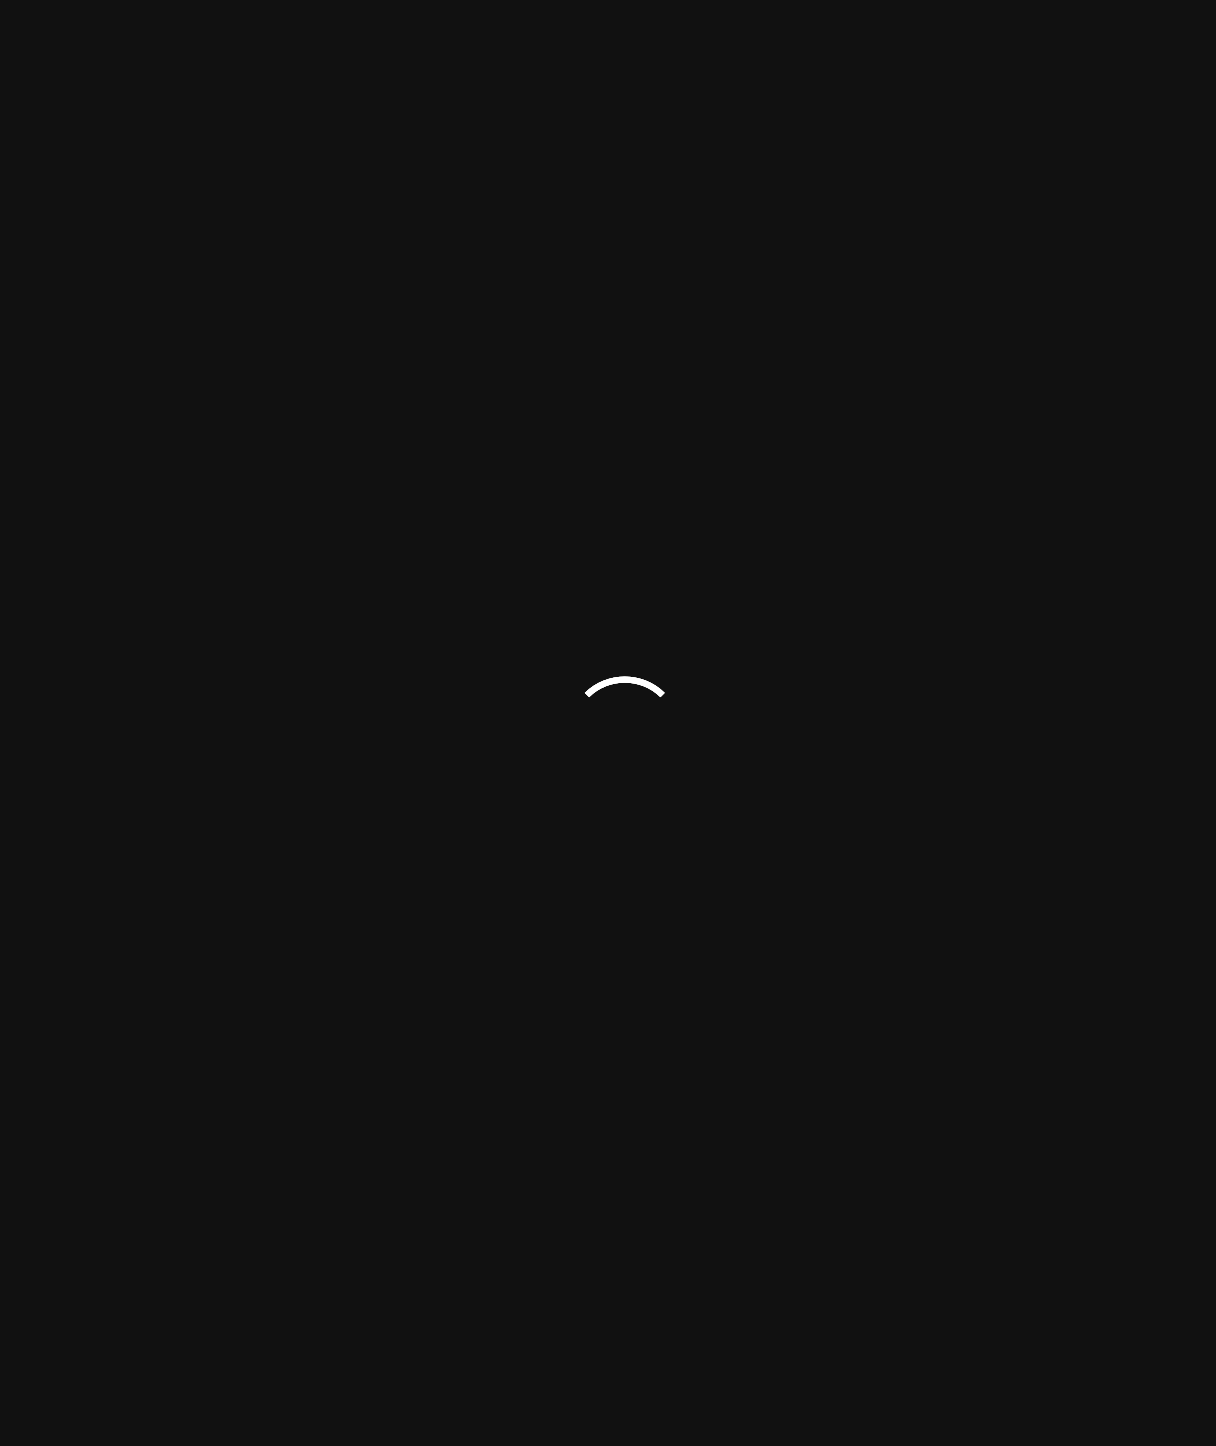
#include <cairo.h>
#include <math.h>
#include <stddef.h>

static cairo_t *c;
static void C(unsigned color){cairo_set_source_rgb(c, (color >> 16) / 255.0, (color >> 8 & 255) / 255.0, (color & 255) / 255.0);}
int main(void) {
cairo_surface_t *surface = cairo_image_surface_create(CAIRO_FORMAT_RGB24, 1216, 1446);
c = cairo_create(surface);
cairo_font_options_t *options = cairo_font_options_create();
cairo_font_options_set_hint_metrics(options, CAIRO_HINT_METRICS_OFF);
cairo_font_options_set_hint_style(options, CAIRO_HINT_STYLE_NONE);
cairo_set_font_options(c, options);
cairo_set_miter_limit(c, 4);
C(0x111111);
cairo_paint(c);
cairo_new_path(c);
cairo_move_to(c,587,695);
cairo_curve_to(c,607.5,674.5,642,674.5,662.5,695);
C(0xffffff);
cairo_set_line_width(c,6);
cairo_stroke(c);
cairo_new_path(c);
cairo_move_to(c,587,695);
cairo_curve_to(c,607.5,674.5,642,674.5,662.5,695);
cairo_stroke(c);
cairo_new_path(c);
cairo_move_to(c,587,695);
cairo_curve_to(c,607.5,674.5,642,674.5,662.5,695);
cairo_stroke(c);
cairo_new_path(c);
cairo_move_to(c,587,695);
cairo_curve_to(c,607.5,674.5,642,674.5,662.5,695);
cairo_stroke(c);
cairo_surface_write_to_png(surface, "o.png");
cairo_font_options_destroy(options);
cairo_destroy(c);
cairo_surface_destroy(surface);
return 0;
}
